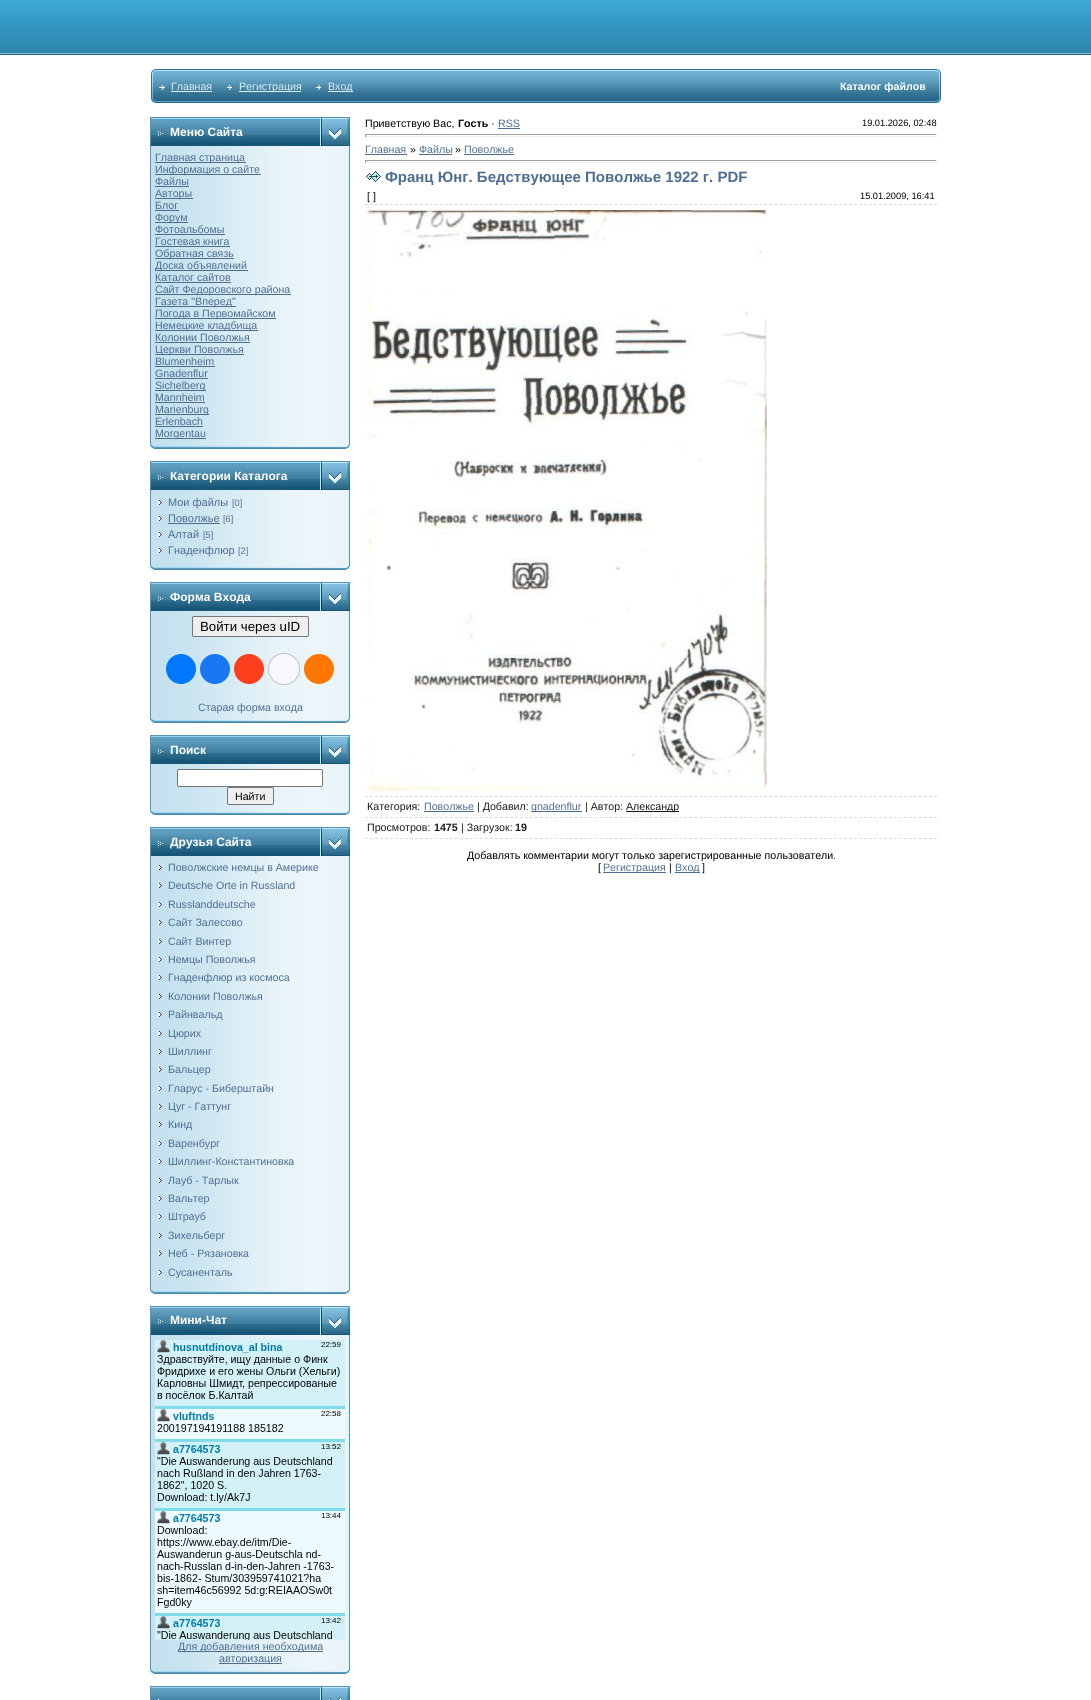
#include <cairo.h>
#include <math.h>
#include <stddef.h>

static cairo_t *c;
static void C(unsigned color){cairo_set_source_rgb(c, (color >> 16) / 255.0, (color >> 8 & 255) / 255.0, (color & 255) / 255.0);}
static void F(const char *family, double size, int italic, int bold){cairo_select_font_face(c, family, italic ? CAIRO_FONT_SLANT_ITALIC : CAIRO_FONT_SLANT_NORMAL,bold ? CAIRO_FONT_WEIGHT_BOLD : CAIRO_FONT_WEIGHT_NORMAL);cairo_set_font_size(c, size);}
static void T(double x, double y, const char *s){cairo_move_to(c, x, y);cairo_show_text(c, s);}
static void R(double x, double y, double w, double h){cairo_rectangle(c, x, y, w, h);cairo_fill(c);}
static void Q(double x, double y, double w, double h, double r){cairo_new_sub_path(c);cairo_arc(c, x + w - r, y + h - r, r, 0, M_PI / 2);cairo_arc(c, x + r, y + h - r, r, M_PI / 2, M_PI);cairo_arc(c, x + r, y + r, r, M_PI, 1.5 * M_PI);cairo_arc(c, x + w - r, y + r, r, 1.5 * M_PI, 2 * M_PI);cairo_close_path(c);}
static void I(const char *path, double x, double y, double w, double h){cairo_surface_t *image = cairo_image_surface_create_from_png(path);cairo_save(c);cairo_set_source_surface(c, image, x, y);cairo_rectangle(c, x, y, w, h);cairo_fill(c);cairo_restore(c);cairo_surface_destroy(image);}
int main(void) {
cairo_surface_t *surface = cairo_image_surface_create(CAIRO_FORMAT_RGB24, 1091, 1700);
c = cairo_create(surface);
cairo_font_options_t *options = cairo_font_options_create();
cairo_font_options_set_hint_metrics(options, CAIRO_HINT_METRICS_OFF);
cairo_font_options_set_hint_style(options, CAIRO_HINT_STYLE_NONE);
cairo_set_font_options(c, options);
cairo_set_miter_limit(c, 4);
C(0xffffff);
cairo_paint(c);
I("1.png",0,0,1091,55);
I("2.png",151,69,5,34);
I("3.png",156,69,545,34);
I("4.png",159,85,6,5);
F("Liberation Sans",10.65,0,0);
C(0xddeef7);
T(171,90,"Главная");
R(171,91,41,1);
I("5.png",227,85,5,5);
R(239,91,62,1);
T(239,90,"Регистрация");
I("5.png",316,85,5,5);
R(328,91,25,1);
T(328,90,"Вход");
I("6.png",701,69,235,34);
F("Liberation Sans",10.65,0,1);
C(0xffffff);
T(840,90,"Каталог файлов");
I("7.png",936,69,5,34);
I("8.png",151,117,169,29);
C(0x5694b5);
R(150,117,1,29);
I("9.png",158,131,5,5);
F("Liberation Sans",12,0,1);
C(0xffffff);
T(170,136,"Меню Сайта");
I("10.png",320,117,30,1);
I("11.png",320,118,30,28);
I("12.png",150,146,200,298);
C(0x4d6d91);
R(155,162,91,1);
F("Liberation Sans",10.65,0,0);
T(155,161,"Главная страница");
R(155,174,106,1);
T(155,173,"Информация о сайте");
T(155,185,"Файлы");
R(155,186,34,1);
R(155,198,38,1);
T(155,197,"Авторы");
T(155,209,"Блог");
R(155,210,24,1);
R(155,222,33,1);
T(155,221,"Форум");
T(155,233,"Фотоальбомы");
R(155,234,70,1);
T(155,245,"Гостевая книга");
R(155,246,75,1);
R(155,258,79,1);
T(155,257,"Обратная связь");
R(155,270,93,1);
T(155,269,"Доска объявлений");
T(155,281,"Каталог сайтов");
R(155,282,76,1);
R(155,294,136,1);
T(155,293,"Сайт Федоровского района");
R(155,306,81,1);
T(155,305,"Газета \"Вперед\"");
R(155,318,121,1);
T(155,317,"Погода в Первомайском");
R(155,330,103,1);
T(155,329,"Немецкие кладбища");
T(155,341,"Колонии Поволжья");
R(155,342,95,1);
R(155,354,89,1);
T(155,353,"Церкви Поволжья");
T(155,365,"Blumenheim");
R(155,366,60,1);
T(155,377,"Gnadenflur");
R(155,378,53,1);
R(155,390,51,1);
T(155,389,"Sichelberg");
T(155,401,"Mannheim");
R(155,402,50,1);
R(155,414,54,1);
T(155,413,"Marienburg");
T(155,425,"Erlenbach");
R(155,426,48,1);
R(155,438,51,1);
T(155,437,"Morgentau");
I("13.png",150,444,200,5);
I("8.png",151,461,169,29);
C(0x5694b5);
R(150,461,1,29);
I("9.png",158,475,5,5);
F("Liberation Sans",12,0,1);
C(0xffffff);
T(170,480,"Категории Каталога");
I("10.png",320,461,30,1);
I("11.png",320,462,30,28);
I("14.png",150,490,200,75);
I("15.png",158,500,4,5);
F("Liberation Sans",11,0,0);
C(0x4d6d91);
T(168,506,"Мои файлы");
F("Liberation Sans",9.25,0,0);
T(232,506,"[0]");
I("15.png",158,516,4,5);
F("Liberation Sans",11,0,0);
T(168,522,"Поволжье");
R(168,523,52,1);
F("Liberation Sans",9.25,0,0);
T(223,522,"[6]");
I("15.png",158,532,4,5);
F("Liberation Sans",11,0,0);
T(168,538,"Алтай");
F("Liberation Sans",9.25,0,0);
T(203,538,"[5]");
I("15.png",158,548,4,5);
F("Liberation Sans",11,0,0);
T(168,554,"Гнаденфлюр");
F("Liberation Sans",9.25,0,0);
T(238,554,"[2]");
I("13.png",150,565,200,5);
I("8.png",151,582,169,29);
C(0x5694b5);
R(150,582,1,29);
I("9.png",158,596,5,5);
F("Liberation Sans",12,0,1);
C(0xffffff);
T(170,601,"Форма Входа");
I("10.png",320,582,30,1);
I("11.png",320,583,30,28);
I("16.png",150,611,200,107);
C(0xefefef);
Q(192.5,616.5,116,20,1.5);
cairo_fill_preserve(c);
C(0x767676);
cairo_set_line_width(c,1);
cairo_stroke(c);
F("Liberation Sans",13.25,0,0);
C(0x000000);
T(200,631,"Войти через uID");
C(0x0077ff);
cairo_new_path(c);
cairo_arc(c,181,669,15,0,2 * M_PI);
cairo_fill(c);
C(0x1877f2);
cairo_arc(c,215,669,15,0,2 * M_PI);
cairo_fill(c);
C(0xfc3f1d);
cairo_arc(c,249,669,15,0,2 * M_PI);
cairo_fill(c);
C(0xf8f8fc);
cairo_arc(c,284,669,15.5,0,2 * M_PI);
cairo_fill_preserve(c);
C(0xc4c4c4);
cairo_stroke(c);
C(0xff7700);
cairo_arc(c,319,669,15,0,2 * M_PI);
cairo_fill(c);
F("Liberation Sans",10.65,0,0);
C(0x4d6d91);
T(198,711,"Старая форма входа");
I("13.png",150,718,200,5);
I("8.png",151,735,169,29);
C(0x5694b5);
R(150,735,1,29);
I("9.png",158,749,5,5);
F("Liberation Sans",12,0,1);
C(0xffffff);
T(170,754,"Поиск");
I("10.png",320,735,30,1);
I("11.png",320,736,30,28);
I("17.png",150,764,200,46);
Q(177.5,769.5,145,17,1.5);
cairo_fill_preserve(c);
C(0x767676);
cairo_stroke(c);
C(0xefefef);
Q(227.5,787.5,46,17,1.5);
cairo_fill_preserve(c);
C(0x767676);
cairo_stroke(c);
F("Liberation Sans",10.65,0,0);
C(0x000000);
T(235,800,"Найти");
I("13.png",150,810,200,5);
I("8.png",151,827,169,29);
C(0x5694b5);
R(150,827,1,29);
I("9.png",158,841,5,5);
F("Liberation Sans",12,0,1);
C(0xffffff);
T(170,846,"Друзья Сайта");
I("10.png",320,827,30,1);
I("11.png",320,828,30,28);
I("18.png",150,856,200,433);
I("15.png",158,865,4,5);
F("Liberation Sans",10.65,0,0);
C(0x4d6d91);
T(168,871,"Поволжские немцы в Америке");
I("15.png",158,883,4,5);
T(168,889,"Deutsche Orte in Russland");
I("15.png",158,902,4,5);
T(168,908,"Russlanddeutsche");
I("15.png",158,920,4,5);
T(168,926,"Сайт Залесово");
I("15.png",158,939,4,5);
T(168,945,"Сайт Винтер");
I("15.png",158,957,4,5);
T(168,963,"Немцы Поволжья");
I("15.png",158,975,4,5);
T(168,981,"Гнаденфлюр из космоса");
I("15.png",158,994,4,5);
T(168,1000,"Колонии Поволжья");
I("15.png",158,1012,4,5);
T(168,1018,"Райнвальд");
I("15.png",158,1031,4,5);
T(168,1037,"Цюрих");
I("15.png",158,1049,4,5);
T(168,1055,"Шиллинг");
I("15.png",158,1067,4,5);
T(168,1073,"Бальцер");
I("15.png",158,1086,4,5);
T(168,1092,"Гларус - Биберштайн");
I("15.png",158,1104,4,5);
T(168,1110,"Цуг - Гаттунг");
I("15.png",158,1122,4,5);
T(168,1128,"Кинд");
I("15.png",158,1141,4,5);
T(168,1147,"Варенбург");
I("15.png",158,1159,4,5);
T(168,1165,"Шиллинг-Константиновка");
I("15.png",158,1178,4,5);
T(168,1184,"Лауб - Тарлык");
I("15.png",158,1196,4,5);
T(168,1202,"Вальтер");
I("15.png",158,1214,4,5);
T(168,1220,"Штрауб");
I("15.png",158,1233,4,5);
T(168,1239,"Зихельберг");
I("15.png",158,1251,4,5);
T(168,1257,"Неб - Рязановка");
I("15.png",158,1270,4,5);
T(168,1276,"Сусаненталь");
I("13.png",150,1289,200,5);
I("8.png",151,1306,169,29);
C(0x5694b5);
R(150,1306,1,29);
I("19.png",158,1319,5,5);
F("Liberation Sans",12,0,1);
C(0xffffff);
T(170,1324,"Мини-Чат");
I("10.png",320,1306,30,1);
I("11.png",320,1307,30,28);
I("20.png",150,1335,200,334);
I("21.png",155,1340,190,300);
C(0x4d6d91);
R(178,1651,145,1);
F("Liberation Sans",10.65,0,0);
T(178,1650,"Для добавления необходима");
R(219,1663,63,1);
T(219,1662,"авторизация");
I("13.png",150,1669,200,5);
I("22.png",151,1686,169,14);
C(0x5694b5);
R(150,1686,1,14);
C(0xffffff);
R(158,1699,1,1);
I("10.png",320,1686,30,1);
I("23.png",320,1687,30,13);
C(0x000000);
T(365,127,"Приветствую Вас,");
F("Liberation Sans",10.65,0,1);
T(458,127,"Гость");
F("Liberation Sans",10.65,0,0);
T(491,127,"·");
C(0x4d6d91);
T(498,127,"RSS");
R(498,128,22,1);
F("Liberation Sans",9.25,0,0);
C(0x000000);
T(862,126,"19.01.2026, 02:48");
C(0x9f9f9f);
R(365,134,572,1);
C(0xeeeeee);
R(936,134,1,3);
R(365,136,572,1);
C(0x9f9f9f);
R(365,134,1,3);
F("Liberation Sans",10.65,0,0);
C(0x4d6d91);
T(365,153,"Главная");
R(365,154,42,1);
C(0x000000);
T(410,153,"»");
C(0x4d6d91);
T(419,153,"Файлы");
R(419,154,33,1);
C(0x000000);
T(455,153,"»");
C(0x4d6d91);
T(464,153,"Поволжье");
R(464,154,50,1);
C(0x9f9f9f);
R(365,160,572,1);
C(0xeeeeee);
R(936,160,1,3);
R(365,162,572,1);
C(0x9f9f9f);
R(365,160,1,3);
I("24.png",366,171,15,11);
F("Liberation Sans",15,0,1);
C(0x4d6d91);
T(385,182,"Франц Юнг. Бедствующее Поволжье 1922 г. PDF");
F("Liberation Sans",10.65,0,0);
C(0x000000);
T(367,200,"[ ]");
F("Liberation Sans",9.25,0,0);
T(860,199,"15.01.2009, 16:41");
cairo_new_path(c);
cairo_move_to(c,365,204.5);
cairo_line_to(c,937,204.5);
C(0xdddddd);
cairo_set_dash(c,(double[]){3,1.99},2,0);
cairo_stroke(c);
I("25.png",367,210,400,581);
cairo_new_path(c);
cairo_move_to(c,365,796.5);
cairo_line_to(c,937,796.5);
cairo_stroke(c);
cairo_new_path(c);
cairo_move_to(c,365,817.5);
cairo_line_to(c,937,817.5);
cairo_stroke(c);
F("Liberation Sans",10.65,0,0);
C(0x1a1a1a);
T(367,810,"Категория:");
C(0x4d6d91);
T(424,810,"Поволжье");
R(424,811,50,1);
C(0x1a1a1a);
T(477,810,"| Добавил:");
C(0x4d6d91);
R(531,811,51,1);
T(531,810,"gnadenflur");
C(0x1a1a1a);
T(585,810,"| Автор:");
R(626,811,53,1);
T(626,810,"Александр");
cairo_new_path(c);
cairo_move_to(c,365,838.5);
cairo_line_to(c,937,838.5);
C(0xdddddd);
cairo_stroke(c);
C(0x1a1a1a);
T(367,831,"Просмотров:");
F("Liberation Sans",10.65,0,1);
T(434,831,"1475");
F("Liberation Sans",10.65,0,0);
T(461,831,"| Загрузок:");
F("Liberation Sans",10.65,0,1);
T(515,831,"19");
F("Liberation Sans",10.65,0,0);
C(0x000000);
T(467,859,"Добавлять комментарии могут только зарегистрированные пользователи.");
T(598,871,"[");
C(0x4d6d91);
R(603,872,63,1);
T(603,871,"Регистрация");
C(0x000000);
T(669,871,"|");
C(0x4d6d91);
R(675,872,25,1);
T(675,871,"Вход");
C(0x000000);
T(702,871,"]");
cairo_surface_write_to_png(surface, "o.png");
cairo_font_options_destroy(options);
cairo_destroy(c);
cairo_surface_destroy(surface);
return 0;
}
